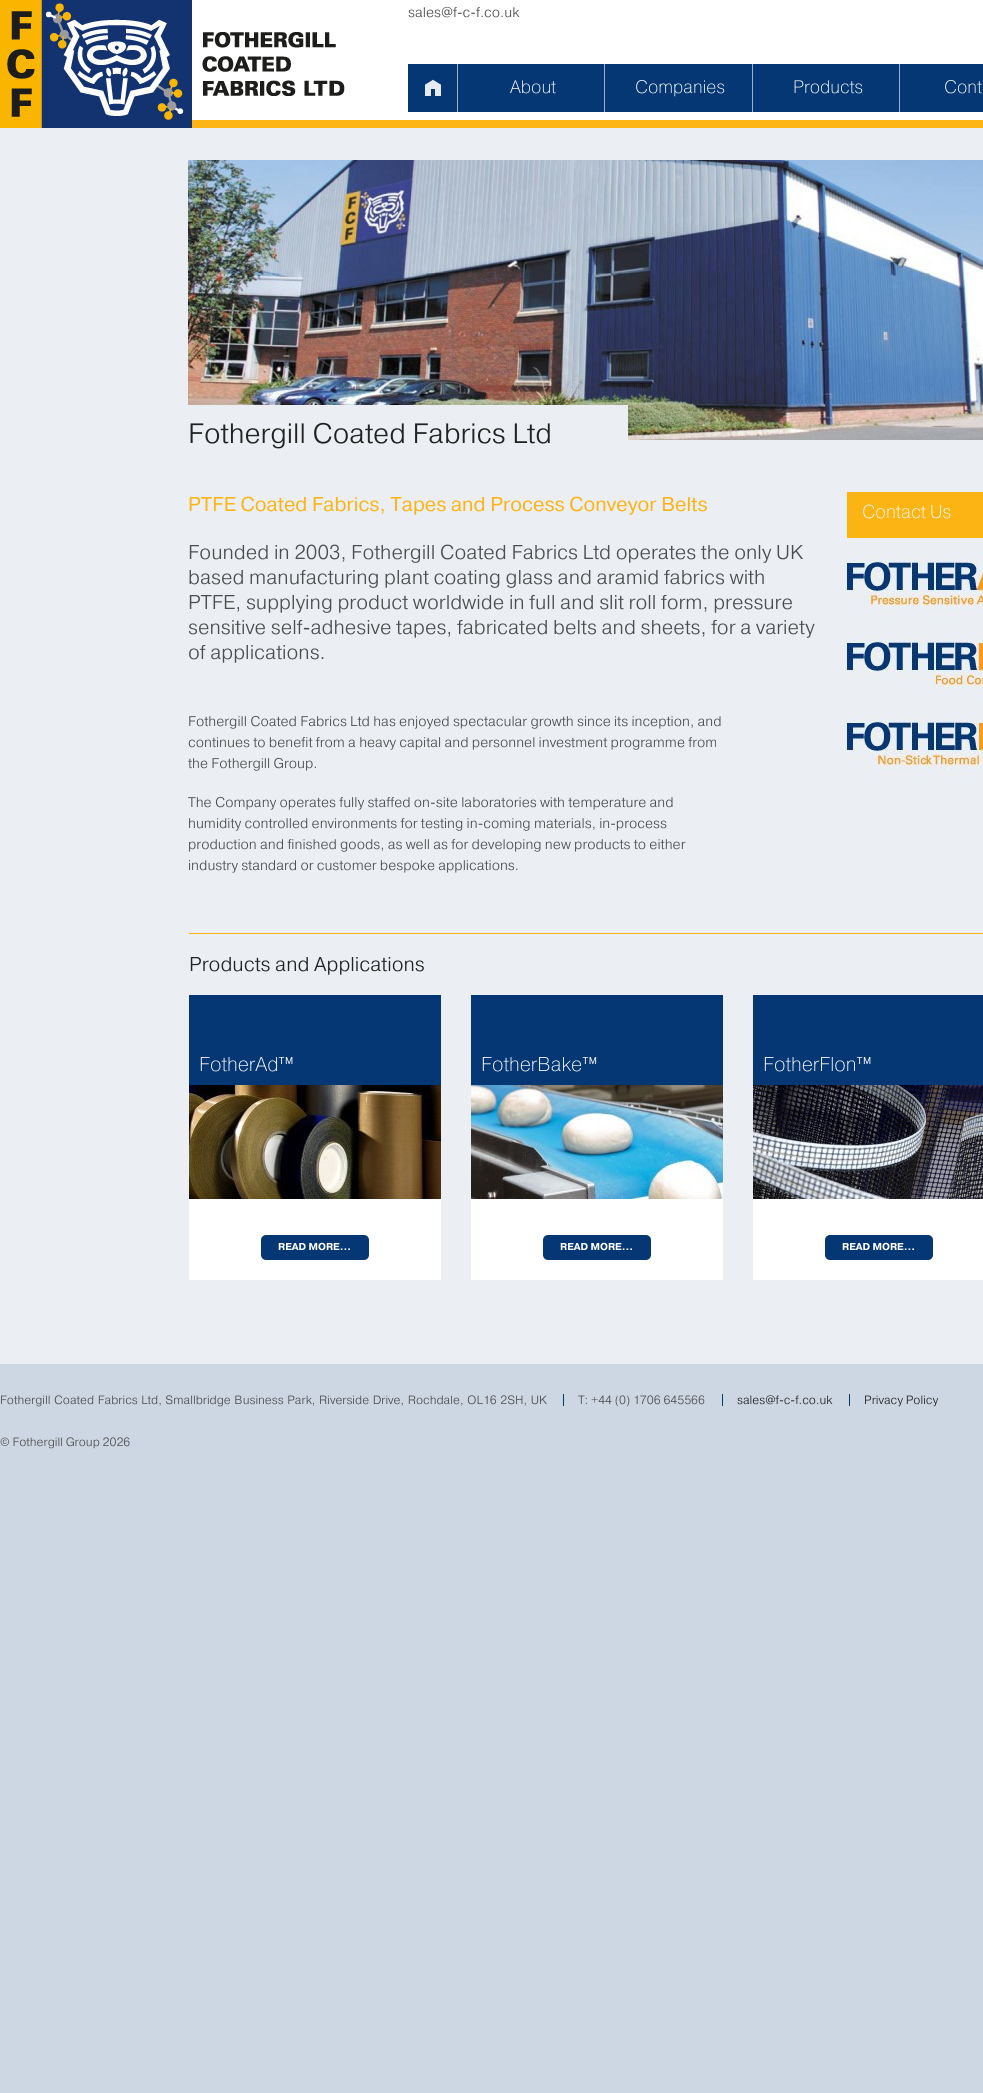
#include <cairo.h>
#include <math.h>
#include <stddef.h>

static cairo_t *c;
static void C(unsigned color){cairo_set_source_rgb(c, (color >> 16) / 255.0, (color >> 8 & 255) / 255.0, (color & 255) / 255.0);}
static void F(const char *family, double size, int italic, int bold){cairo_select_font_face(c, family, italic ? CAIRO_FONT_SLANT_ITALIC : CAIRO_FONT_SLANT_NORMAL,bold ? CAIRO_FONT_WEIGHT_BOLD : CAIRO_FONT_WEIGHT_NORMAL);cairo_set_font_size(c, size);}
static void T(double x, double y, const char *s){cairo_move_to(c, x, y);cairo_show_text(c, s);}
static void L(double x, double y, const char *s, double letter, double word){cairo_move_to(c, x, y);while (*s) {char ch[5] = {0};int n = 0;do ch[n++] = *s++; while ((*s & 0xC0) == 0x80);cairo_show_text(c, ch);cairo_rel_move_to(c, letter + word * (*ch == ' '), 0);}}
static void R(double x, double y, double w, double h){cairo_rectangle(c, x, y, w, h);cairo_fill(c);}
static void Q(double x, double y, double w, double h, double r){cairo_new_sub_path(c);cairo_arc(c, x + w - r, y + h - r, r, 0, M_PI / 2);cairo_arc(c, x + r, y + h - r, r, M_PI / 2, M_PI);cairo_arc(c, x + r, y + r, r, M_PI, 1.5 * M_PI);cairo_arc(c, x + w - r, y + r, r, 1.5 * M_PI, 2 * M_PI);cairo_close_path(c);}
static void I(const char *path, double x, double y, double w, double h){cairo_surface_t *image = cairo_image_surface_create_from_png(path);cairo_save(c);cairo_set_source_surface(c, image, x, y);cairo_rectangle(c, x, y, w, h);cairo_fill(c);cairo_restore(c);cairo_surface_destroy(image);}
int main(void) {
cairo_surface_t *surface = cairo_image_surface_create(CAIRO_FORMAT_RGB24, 983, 2093);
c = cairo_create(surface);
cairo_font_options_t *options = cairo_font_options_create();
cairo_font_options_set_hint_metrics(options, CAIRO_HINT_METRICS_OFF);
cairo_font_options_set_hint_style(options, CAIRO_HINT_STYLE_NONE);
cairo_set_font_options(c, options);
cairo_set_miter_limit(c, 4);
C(0xcdd7e3);
cairo_paint(c);
C(0xffffff);
R(192,0,791,120);
C(0xfdb515);
R(192,120,791,8);
I("1.png",0,0,345,128);
F("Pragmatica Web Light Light",14,0,0);
C(0x4d4d4d);
T(408,17,"sales@f-c-f.co.uk");
C(0x053775);
R(408,64,575,48);
C(0x9bafc8);
R(457,64,1,48);
I("2.png",425,79,16,17);
R(604,64,1,48);
F("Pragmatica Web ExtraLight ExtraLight",18,0,0);
C(0xffffff);
T(510,93,"About");
C(0x9bafc8);
R(752,64,1,48);
C(0xffffff);
T(635,93,"Companies");
C(0x9bafc8);
R(899,64,1,48);
C(0xffffff);
T(793,93,"Products");
T(944,93,"Cont");
C(0xebeff4);
R(0,128,983,1236);
I("3.png",188,160,795,280);
R(188,405,440,35);
F("Pragmatica Web Light Light",28,0,0);
C(0x222222);
T(188,443,"Fothergill Coated Fabrics Ltd");
F("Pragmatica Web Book",20,0,0);
C(0xfcb415);
T(188,511,"PTFE Coated Fabrics, Tapes and Process Conveyor Belts");
F("Pragmatica Web Light Light",20,0,0);
C(0x4d4d4d);
T(188,559,"Founded in 2003, Fothergill Coated Fabrics Ltd operates the only UK");
T(188,584,"based manufacturing plant coating glass and aramid fabrics with");
T(188,609,"PTFE, supplying product worldwide in full and slit roll form, pressure");
T(188,634,"sensitive self-adhesive tapes, fabricated belts and sheets, for a variety");
T(188,659,"of applications.");
F("Pragmatica Web Light Light",14,0,0);
T(188,726,"Fothergill Coated Fabrics Ltd has enjoyed spectacular growth since its inception, and");
T(188,747,"continues to benefit from a heavy capital and personnel investment programme from");
T(188,768,"the Fothergill Group.");
T(188,807,"The Company operates fully staffed on-site laboratories with temperature and");
T(188,828,"humidity controlled environments for testing in-coming materials, in-process");
T(188,849,"production and finished goods, as well as for developing new products to either");
T(188,870,"industry standard or customer bespoke applications.");
C(0xfcb415);
R(847,492,136,46);
F("Pragmatica Web ExtraLight ExtraLight",18.5,0,0);
C(0xffffff);
T(862,518,"Contact Us");
I("4.png",847,553,136,64);
I("5.png",847,633,136,64);
I("6.png",847,713,136,64);
C(0xfcb415);
R(189,933,794,1);
F("Pragmatica Web Light Light",20,0,0);
C(0x222222);
T(189,971,"Products and Applications");
C(0xffffff);
R(189,1199,252,81);
C(0x053775);
R(189,995,252,90);
F("Pragmatica Web ExtraLight ExtraLight",20,0,0);
C(0xffffff);
T(199,1071,"FotherAd™");
I("7.png",189,1085,252,114);
C(0x053775);
Q(261,1235,108,25,5);
cairo_fill(c);
F("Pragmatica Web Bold",10,0,1);
C(0xffffff);
T(278,1250,"READ MORE…");
R(471,1199,252,81);
C(0x053775);
R(471,995,252,90);
F("Pragmatica Web ExtraLight ExtraLight",20,0,0);
C(0xffffff);
T(481,1071,"FotherBake™");
I("8.png",471,1085,252,114);
C(0x053775);
Q(543,1235,108,25,5);
cairo_fill(c);
F("Pragmatica Web Bold",10,0,1);
C(0xffffff);
T(560,1250,"READ MORE…");
R(753,1199,230,81);
C(0x053775);
R(753,995,230,90);
F("Pragmatica Web ExtraLight ExtraLight",20,0,0);
C(0xffffff);
T(763,1071,"FotherFlon™");
I("9.png",753,1085,230,114);
C(0x053775);
Q(825,1235,108,25,5);
cairo_fill(c);
F("Pragmatica Web Bold",10,0,1);
C(0xffffff);
T(842,1250,"READ MORE…");
F("Pragmatica Web Light Light",12,0,0);
C(0x4d4d4d);
L(0,1404,"Fothergill Coated Fabrics Ltd, Smallbridge Business Park, Riverside Drive, Rochdale, OL16 2SH, UK",0,.75);
C(0x053775);
R(563,1394,1,12);
C(0x4d4d4d);
T(578,1404,"T: +44 (0) 1706 645566");
C(0x053775);
R(722,1394,1,12);
C(0x222222);
T(737,1404,"sales@f-c-f.co.uk");
C(0x053775);
R(849,1394,1,12);
C(0x222222);
T(864,1404,"Privacy Policy");
C(0x4d4d4d);
T(0,1446,"© Fothergill Group 2026");
cairo_surface_write_to_png(surface, "o.png");
cairo_font_options_destroy(options);
cairo_destroy(c);
cairo_surface_destroy(surface);
return 0;
}
